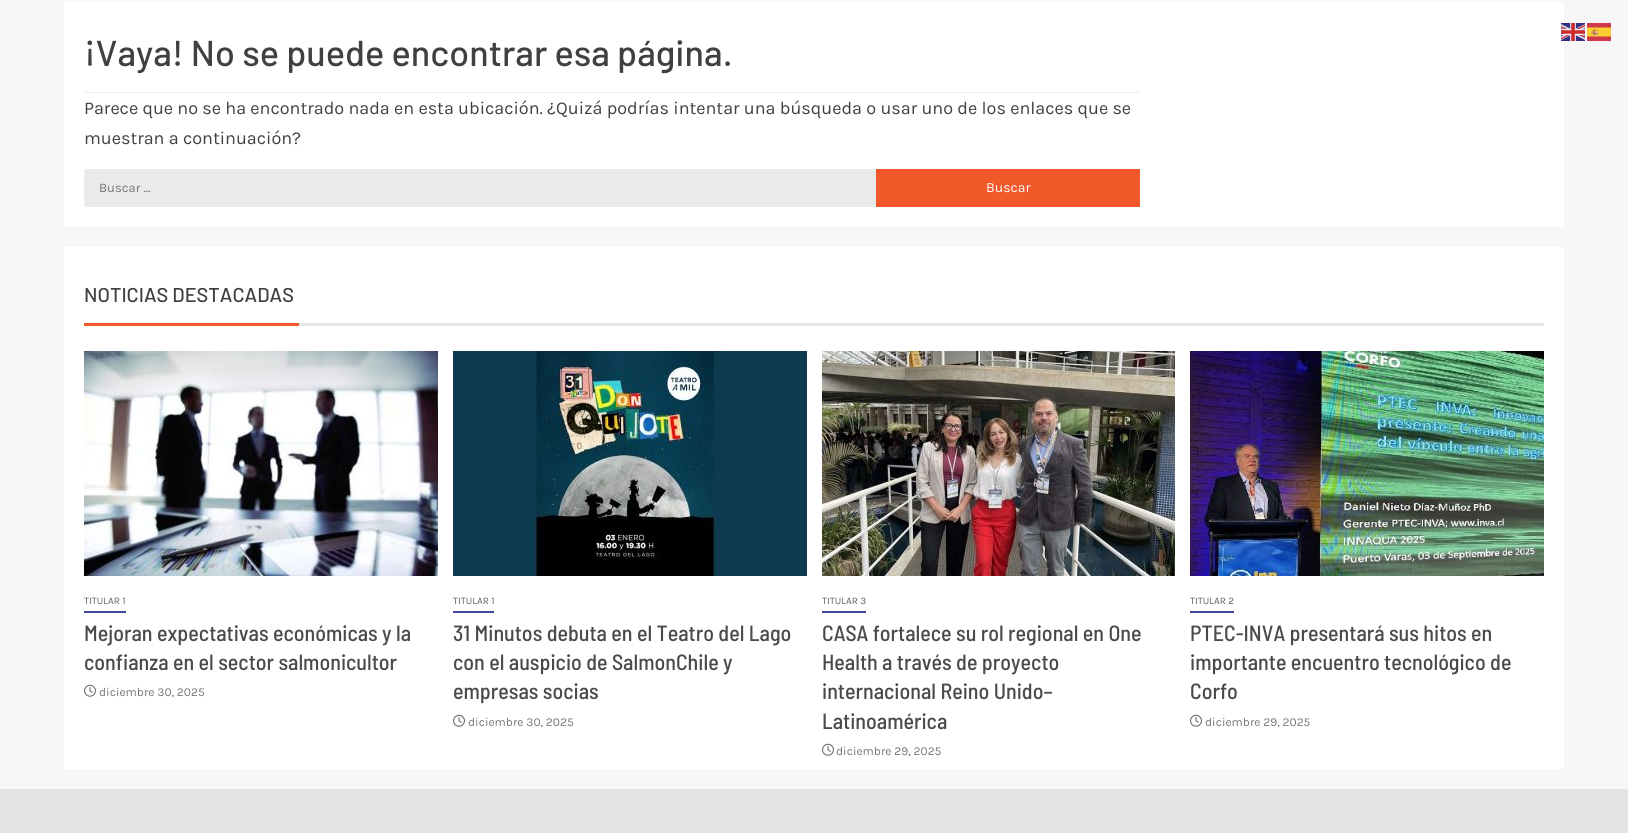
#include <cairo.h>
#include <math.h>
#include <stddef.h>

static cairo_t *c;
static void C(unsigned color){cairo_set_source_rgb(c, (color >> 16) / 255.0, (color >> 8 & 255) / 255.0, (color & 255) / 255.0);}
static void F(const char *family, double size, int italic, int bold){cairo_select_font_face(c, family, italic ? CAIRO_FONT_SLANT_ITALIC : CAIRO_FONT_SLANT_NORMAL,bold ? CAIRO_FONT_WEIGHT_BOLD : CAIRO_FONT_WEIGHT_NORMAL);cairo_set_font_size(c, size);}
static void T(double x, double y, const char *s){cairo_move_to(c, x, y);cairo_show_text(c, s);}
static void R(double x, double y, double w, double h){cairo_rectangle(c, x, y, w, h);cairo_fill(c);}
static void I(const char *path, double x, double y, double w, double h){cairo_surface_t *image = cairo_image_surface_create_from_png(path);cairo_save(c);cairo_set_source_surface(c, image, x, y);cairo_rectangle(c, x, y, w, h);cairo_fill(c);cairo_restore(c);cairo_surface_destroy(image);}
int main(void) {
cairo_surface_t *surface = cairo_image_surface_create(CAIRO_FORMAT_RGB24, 1628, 833);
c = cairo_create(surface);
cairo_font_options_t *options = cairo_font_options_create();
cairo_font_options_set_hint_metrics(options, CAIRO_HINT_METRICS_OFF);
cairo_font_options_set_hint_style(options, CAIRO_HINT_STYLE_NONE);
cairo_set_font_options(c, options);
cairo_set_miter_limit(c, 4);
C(0xf7f7f7);
cairo_paint(c);
C(0xffffff);
R(64,2,1500,225);
I("1.png",1561,23,24,18);
I("2.png",1587,23,24,18);
C(0xeeeeee);
R(84,92,1056,1);
F("Barlow Medium",36,0,0);
C(0x404040);
T(84,66,"¡Vaya! No se puede encontrar esa página.");
F("Karla",18,0,0);
T(84,114,"Parece que no se ha encontrado nada en esta ubicación. ¿Quizá podrías intentar una búsqueda o usar uno de los enlaces que se");
T(84,144,"muestran a continuación?");
C(0xeaeaea);
cairo_new_path(c);
cairo_move_to(c,87,169);
cairo_line_to(c,876,169);
cairo_line_to(c,876,207);
cairo_line_to(c,87,207);
cairo_curve_to(c,85.5,207,84,205.5,84,204);
cairo_line_to(c,84,172);
cairo_curve_to(c,84,170.5,85.5,169,87,169);
cairo_close_path(c);
cairo_fill(c);
F("Karla",13,0,0);
C(0x757575);
T(99,192,"Buscar …");
C(0xf1592a);
R(876,169,264,38);
F("Karla",14,0,0);
C(0xffffff);
T(986,192,"Buscar");
R(64,247,1500,522);
F("Barlow Medium",20,0,0);
C(0x404040);
T(84,302,"NOTICIAS DESTACADAS");
C(0xf1592a);
R(84,323,215,3);
C(0xe6e6e6);
R(299,323,1245,3);
I("3.png",84,351,354,225);
C(0x4048a3);
R(84,611,42,2);
F("Karla",10,0,0);
C(0x606060);
T(84,604,"TITULAR 1");
F("Barlow Semi Condensed Medium",22,0,0);
C(0x4a4a4a);
T(84,641,"Mejoran expectativas económicas y la");
T(84,670,"confianza en el sector salmonicultor");
I("4.png",84,684,12,13);
F("Karla",12,0,0);
C(0x757575);
T(99,696,"diciembre 30, 2025");
I("5.png",453,351,354,225);
C(0x4048a3);
R(453,611,41,2);
F("Karla",10,0,0);
C(0x606060);
T(453,604,"TITULAR 1");
F("Barlow Semi Condensed Medium",22,0,0);
C(0x4a4a4a);
T(453,641,"31 Minutos debuta en el Teatro del Lago");
T(453,670,"con el auspicio de SalmonChile y");
T(453,699,"empresas socias");
I("4.png",453,714,12,13);
F("Karla",12,0,0);
C(0x757575);
T(468,726,"diciembre 30, 2025");
I("6.png",822,351,353,225);
C(0x4048a3);
R(822,611,44,2);
F("Karla",10,0,0);
C(0x606060);
T(822,604,"TITULAR 3");
F("Barlow Semi Condensed Medium",22,0,0);
C(0x4a4a4a);
T(822,641,"CASA fortalece su rol regional en One");
T(822,670,"Health a través de proyecto");
T(822,699,"internacional Reino Unido–");
T(822,729,"Latinoamérica");
I("4.png",822,743,12,13);
F("Karla",12,0,0);
C(0x757575);
T(836,755,"diciembre 29, 2025");
I("7.png",1190,351,354,225);
C(0x4048a3);
R(1190,611,44,2);
F("Karla",10,0,0);
C(0x606060);
T(1190,604,"TITULAR 2");
F("Barlow Semi Condensed Medium",22,0,0);
C(0x4a4a4a);
T(1190,641,"PTEC-INVA presentará sus hitos en");
T(1190,670,"importante encuentro tecnológico de");
T(1190,699,"Corfo");
I("4.png",1190,714,12,13);
F("Karla",12,0,0);
C(0x757575);
T(1205,726,"diciembre 29, 2025");
C(0xe3e3e3);
R(0,789,1628,44);
cairo_surface_write_to_png(surface, "o.png");
cairo_font_options_destroy(options);
cairo_destroy(c);
cairo_surface_destroy(surface);
return 0;
}
